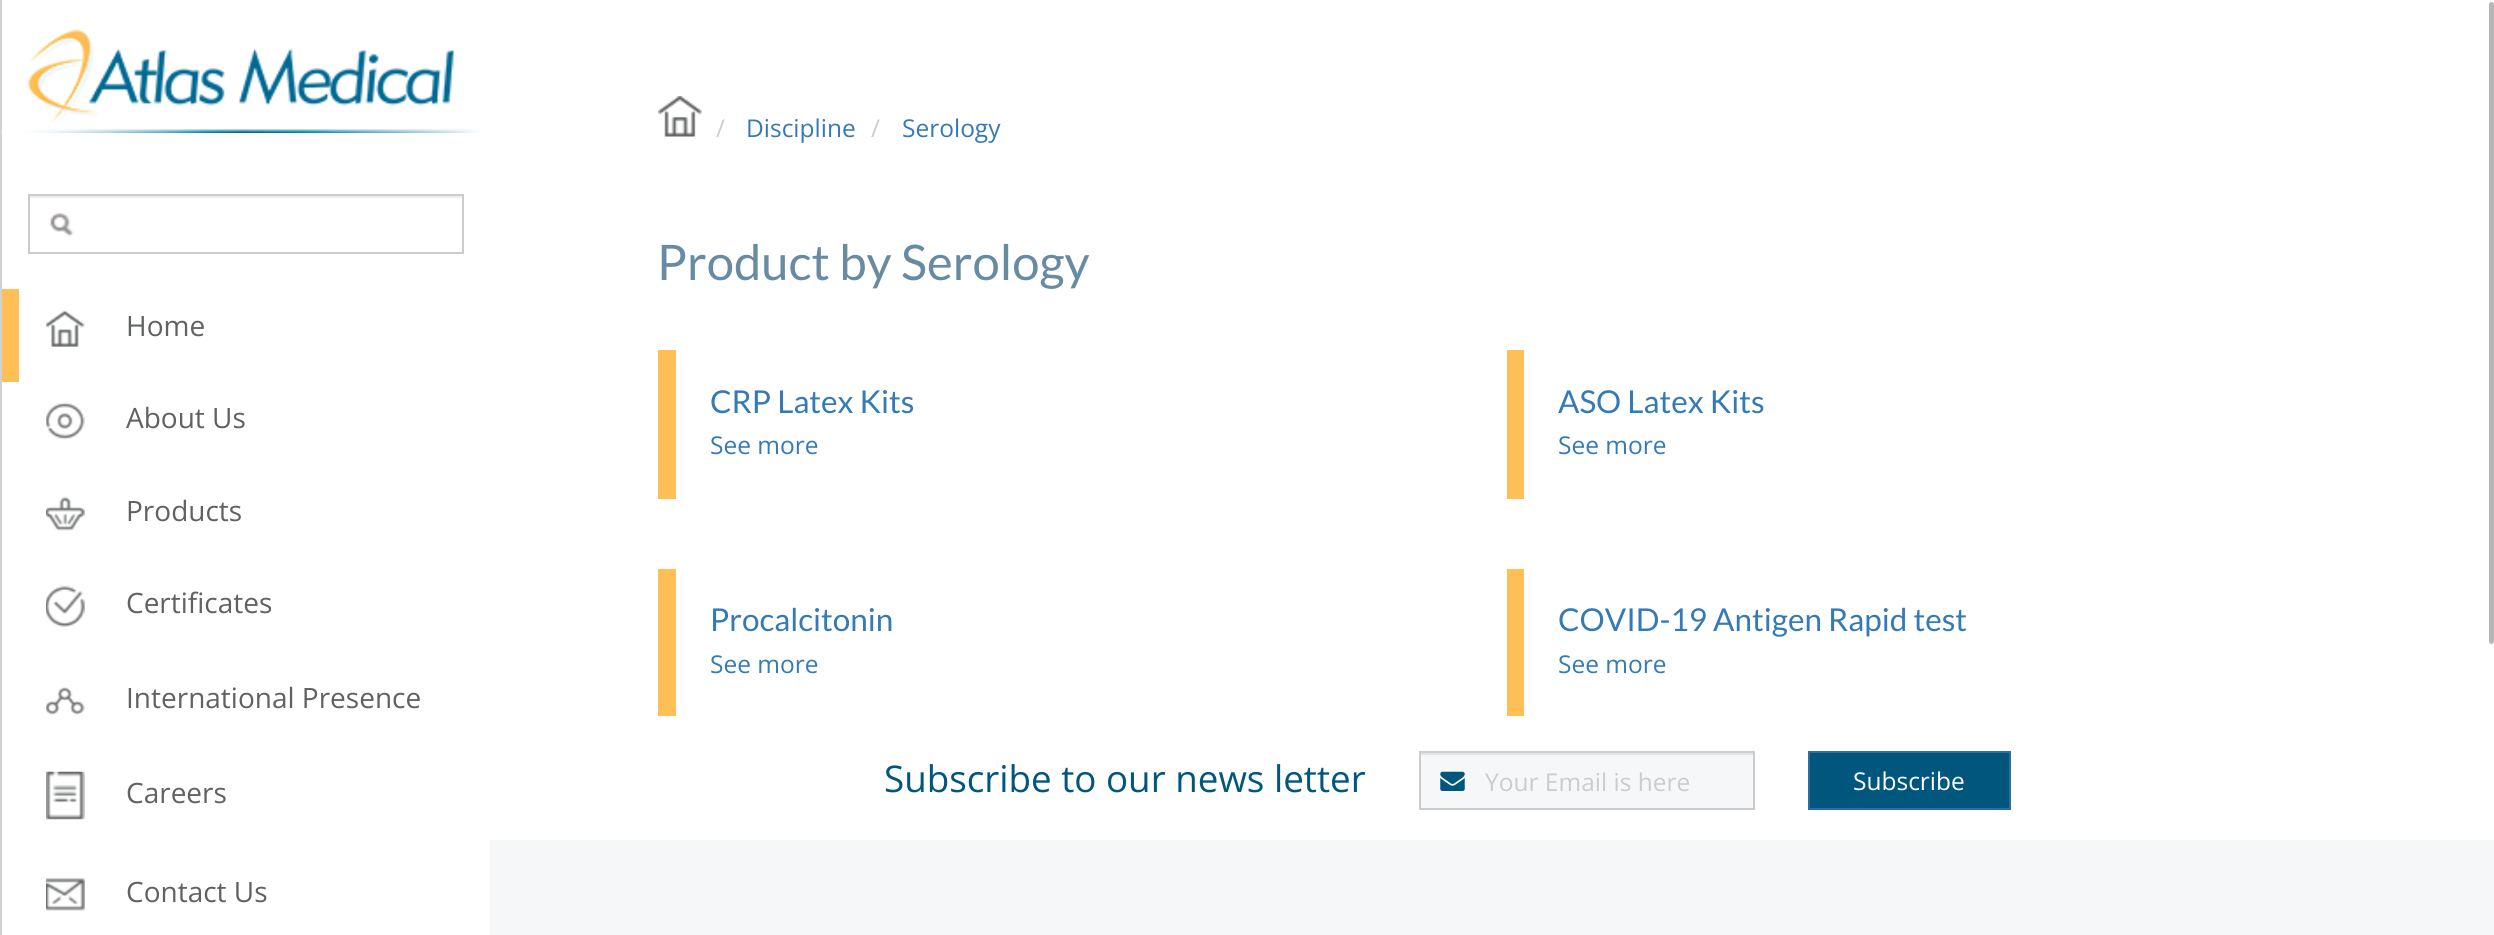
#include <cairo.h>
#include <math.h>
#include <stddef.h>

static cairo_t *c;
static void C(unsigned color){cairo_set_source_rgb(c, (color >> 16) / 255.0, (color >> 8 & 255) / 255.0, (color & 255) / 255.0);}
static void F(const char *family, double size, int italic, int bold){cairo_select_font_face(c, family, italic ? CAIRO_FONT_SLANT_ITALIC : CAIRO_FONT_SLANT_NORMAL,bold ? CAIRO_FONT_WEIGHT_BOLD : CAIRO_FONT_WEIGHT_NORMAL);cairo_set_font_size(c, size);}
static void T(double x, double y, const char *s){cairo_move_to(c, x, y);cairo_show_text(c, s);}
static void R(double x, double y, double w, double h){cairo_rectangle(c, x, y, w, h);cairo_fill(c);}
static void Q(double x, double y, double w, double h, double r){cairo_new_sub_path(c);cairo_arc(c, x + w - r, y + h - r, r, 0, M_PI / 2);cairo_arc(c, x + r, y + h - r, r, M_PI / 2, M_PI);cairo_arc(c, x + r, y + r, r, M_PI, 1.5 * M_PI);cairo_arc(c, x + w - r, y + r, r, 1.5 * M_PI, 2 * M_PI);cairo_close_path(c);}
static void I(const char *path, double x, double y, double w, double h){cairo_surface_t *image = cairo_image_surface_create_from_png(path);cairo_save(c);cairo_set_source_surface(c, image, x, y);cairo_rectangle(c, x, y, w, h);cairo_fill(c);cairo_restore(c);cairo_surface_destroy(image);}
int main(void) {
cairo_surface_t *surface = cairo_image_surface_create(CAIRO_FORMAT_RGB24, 2494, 935);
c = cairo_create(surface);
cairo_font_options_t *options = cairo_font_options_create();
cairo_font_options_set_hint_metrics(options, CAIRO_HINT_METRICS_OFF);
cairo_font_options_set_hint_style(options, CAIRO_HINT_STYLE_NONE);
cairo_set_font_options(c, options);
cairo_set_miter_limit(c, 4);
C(0xffffff);
cairo_paint(c);
C(0xd0d1d2);
R(0,0,2,935);
I("1.png",1,29,478,104);
I("2.png",50,213,24,24);
C(0xececec);
R(30,196,432,2);
cairo_rectangle(c,29,195,434,58);
C(0xcccccc);
cairo_stroke(c);
C(0xfdbf56);
R(2,289,17,93);
I("3.png",46,310,39,37);
F("Open Sans",28,0,0);
C(0x5f6162);
T(126,336,"Home");
I("4.png",46,402,39,38);
T(126,428,"About Us");
I("5.png",46,496,39,35);
T(126,521,"Products");
I("6.png",46,585,39,42);
T(126,613,"Certificates");
I("7.png",46,687,39,28);
T(126,708,"International Presence");
I("8.png",46,771,39,49);
T(126,803,"Careers");
I("9.png",46,877,39,34);
T(126,902,"Contact Us");
I("10.png",658,96,44,41);
F("Open Sans",24.5,0,0);
C(0xcccccc);
T(716,137,"/");
C(0x337ab7);
T(746,137,"Discipline");
C(0xcccccc);
T(871,137,"/");
C(0x337ab7);
T(902,137,"Serology");
F("Lato",49,0,0);
C(0x668ba2);
T(657,280,"Product by Serology");
C(0xfdbf56);
R(658,350,18,149);
F("Lato",31.5,0,0);
C(0x337ab7);
T(710,413,"CRP Latex Kits");
F("Open Sans",24.5,0,0);
T(710,454,"See more");
C(0xfdbf56);
R(1507,350,17,149);
F("Lato",31.5,0,0);
C(0x337ab7);
T(1558,413,"ASO Latex Kits");
F("Open Sans",24.5,0,0);
T(1558,454,"See more");
C(0xfdbf56);
R(658,569,18,147);
F("Lato",31.5,0,0);
C(0x337ab7);
T(710,631,"Procalcitonin");
F("Open Sans",24.5,0,0);
T(710,673,"See more");
C(0xfdbf56);
R(1507,569,17,147);
F("Lato",31.5,0,0);
C(0x337ab7);
T(1558,631,"COVID-19 Antigen Rapid test");
F("Open Sans",24.5,0,0);
T(1558,673,"See more");
F("Open Sans",36.75,0,0);
C(0x00567c);
T(884,792,"Subscribe to our news letter");
C(0xf5f7f8);
R(1421,755,332,53);
C(0xe3e4e5);
R(1421,753,333,2);
cairo_rectangle(c,1420,752,334,57);
C(0xcccccc);
cairo_stroke(c);
I("11.png",1440,771,25,20);
F("Open Sans",24.5,0,0);
T(1485,791,"Your Email is here");
C(0x00567c);
cairo_rectangle(c,1809,752,201,57);
cairo_fill_preserve(c);
C(0x2e6da4);
cairo_stroke(c);
C(0xffffff);
T(1853,790,"Subscribe");
C(0xf5f7f8);
R(490,840,2004,95);
C(0xb6b6b6);
Q(2488,1,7,644,3.5);
cairo_fill_preserve(c);
C(0xffffff);
cairo_stroke(c);
cairo_surface_write_to_png(surface, "o.png");
cairo_font_options_destroy(options);
cairo_destroy(c);
cairo_surface_destroy(surface);
return 0;
}
